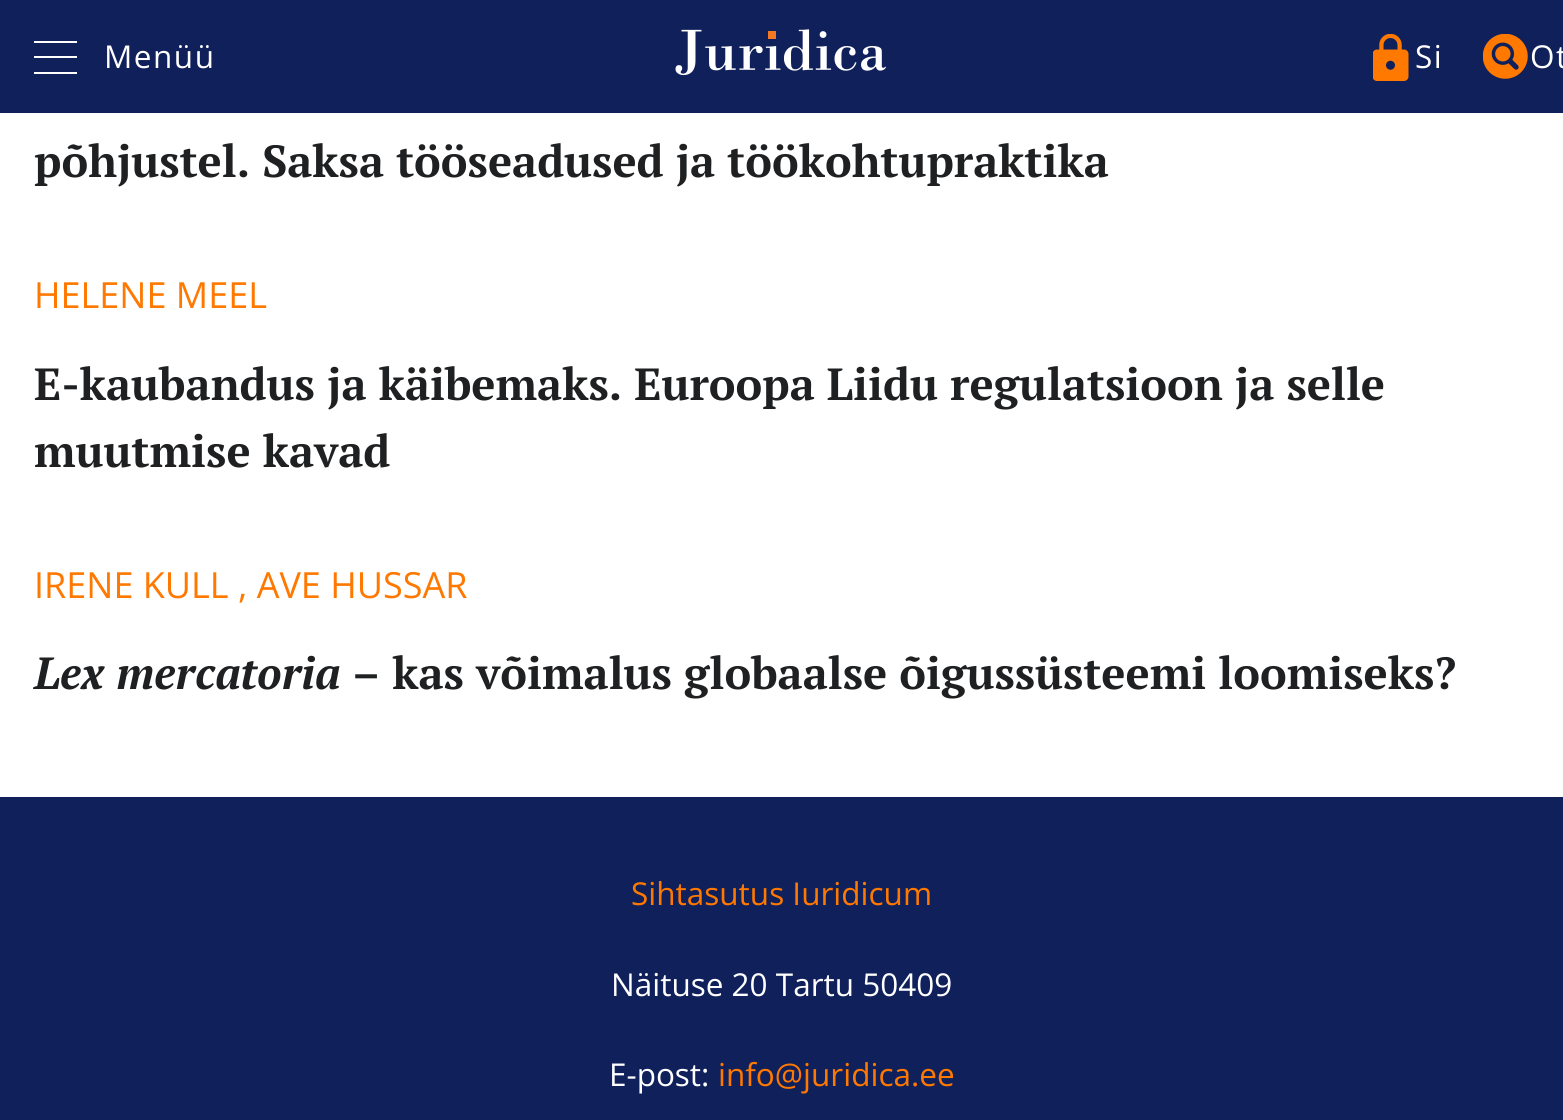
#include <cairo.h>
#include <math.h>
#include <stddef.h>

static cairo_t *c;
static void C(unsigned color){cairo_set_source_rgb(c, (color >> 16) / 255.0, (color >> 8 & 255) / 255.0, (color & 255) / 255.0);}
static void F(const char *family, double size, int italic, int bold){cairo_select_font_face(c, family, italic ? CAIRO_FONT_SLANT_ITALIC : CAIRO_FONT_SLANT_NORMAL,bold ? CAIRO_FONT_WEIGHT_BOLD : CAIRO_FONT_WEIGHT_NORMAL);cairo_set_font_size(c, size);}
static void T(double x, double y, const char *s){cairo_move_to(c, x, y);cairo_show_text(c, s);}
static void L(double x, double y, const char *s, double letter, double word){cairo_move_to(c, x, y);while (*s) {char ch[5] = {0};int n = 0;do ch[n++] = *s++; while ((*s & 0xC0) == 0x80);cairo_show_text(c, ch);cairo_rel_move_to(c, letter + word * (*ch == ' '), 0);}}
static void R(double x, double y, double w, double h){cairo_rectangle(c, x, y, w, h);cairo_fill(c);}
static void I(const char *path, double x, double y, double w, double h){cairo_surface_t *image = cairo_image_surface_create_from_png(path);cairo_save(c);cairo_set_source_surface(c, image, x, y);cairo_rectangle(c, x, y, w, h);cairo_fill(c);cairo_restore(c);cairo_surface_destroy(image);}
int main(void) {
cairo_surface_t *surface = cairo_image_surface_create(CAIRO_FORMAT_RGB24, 1563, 1120);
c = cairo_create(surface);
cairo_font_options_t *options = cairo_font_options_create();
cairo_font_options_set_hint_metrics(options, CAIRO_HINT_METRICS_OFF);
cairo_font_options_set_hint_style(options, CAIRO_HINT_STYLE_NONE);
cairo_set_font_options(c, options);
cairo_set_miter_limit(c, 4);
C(0xffffff);
cairo_paint(c);
C(0x10205b);
R(0,0,1563,113);
C(0xffffff);
R(34,56,43,2);
R(34,41,43,2);
R(34,72,43,2);
F("Open Sans",31.5,0,0);
L(104,68,"Menüü",1.5,0);
I("1.png",675,29,211,47);
I("2.png",1373,34,36,47);
L(1415,68,"Si",1.5,0);
I("3.png",1483,34,45,45);
L(1530,68,"Ot",1.5,0);
F("PT Serif",45,0,1);
C(0x1f2022);
T(34,177,"põhjustel. Saksa tööseadused ja töökohtupraktika");
F("Open Sans",36,0,0);
C(0xff7800);
T(34,308,"HELENE MEEL");
F("PT Serif",45,0,1);
C(0x1f2022);
T(34,400,"E-kaubandus ja käibemaks. Euroopa Liidu regulatsioon ja selle");
T(34,467,"muutmise kavad");
F("Open Sans",36,0,0);
C(0xff7800);
T(34,598,"IRENE KULL , AVE HUSSAR");
F("PT Serif",45,1,1);
C(0x1f2022);
T(34,689,"Lex mercatoria");
F("PT Serif",45,0,1);
T(352,689,"– kas võimalus globaalse õigussüsteemi loomiseks?");
C(0x10205b);
R(0,797,1563,323);
F("Open Sans",31.5,0,0);
C(0xff7800);
T(631,905,"Sihtasutus Iuridicum");
C(0xffffff);
T(611,996,"Näituse 20 Tartu 50409");
T(609,1086,"E-post:");
C(0xff7800);
T(718,1086,"info@juridica.ee");
cairo_surface_write_to_png(surface, "o.png");
cairo_font_options_destroy(options);
cairo_destroy(c);
cairo_surface_destroy(surface);
return 0;
}
